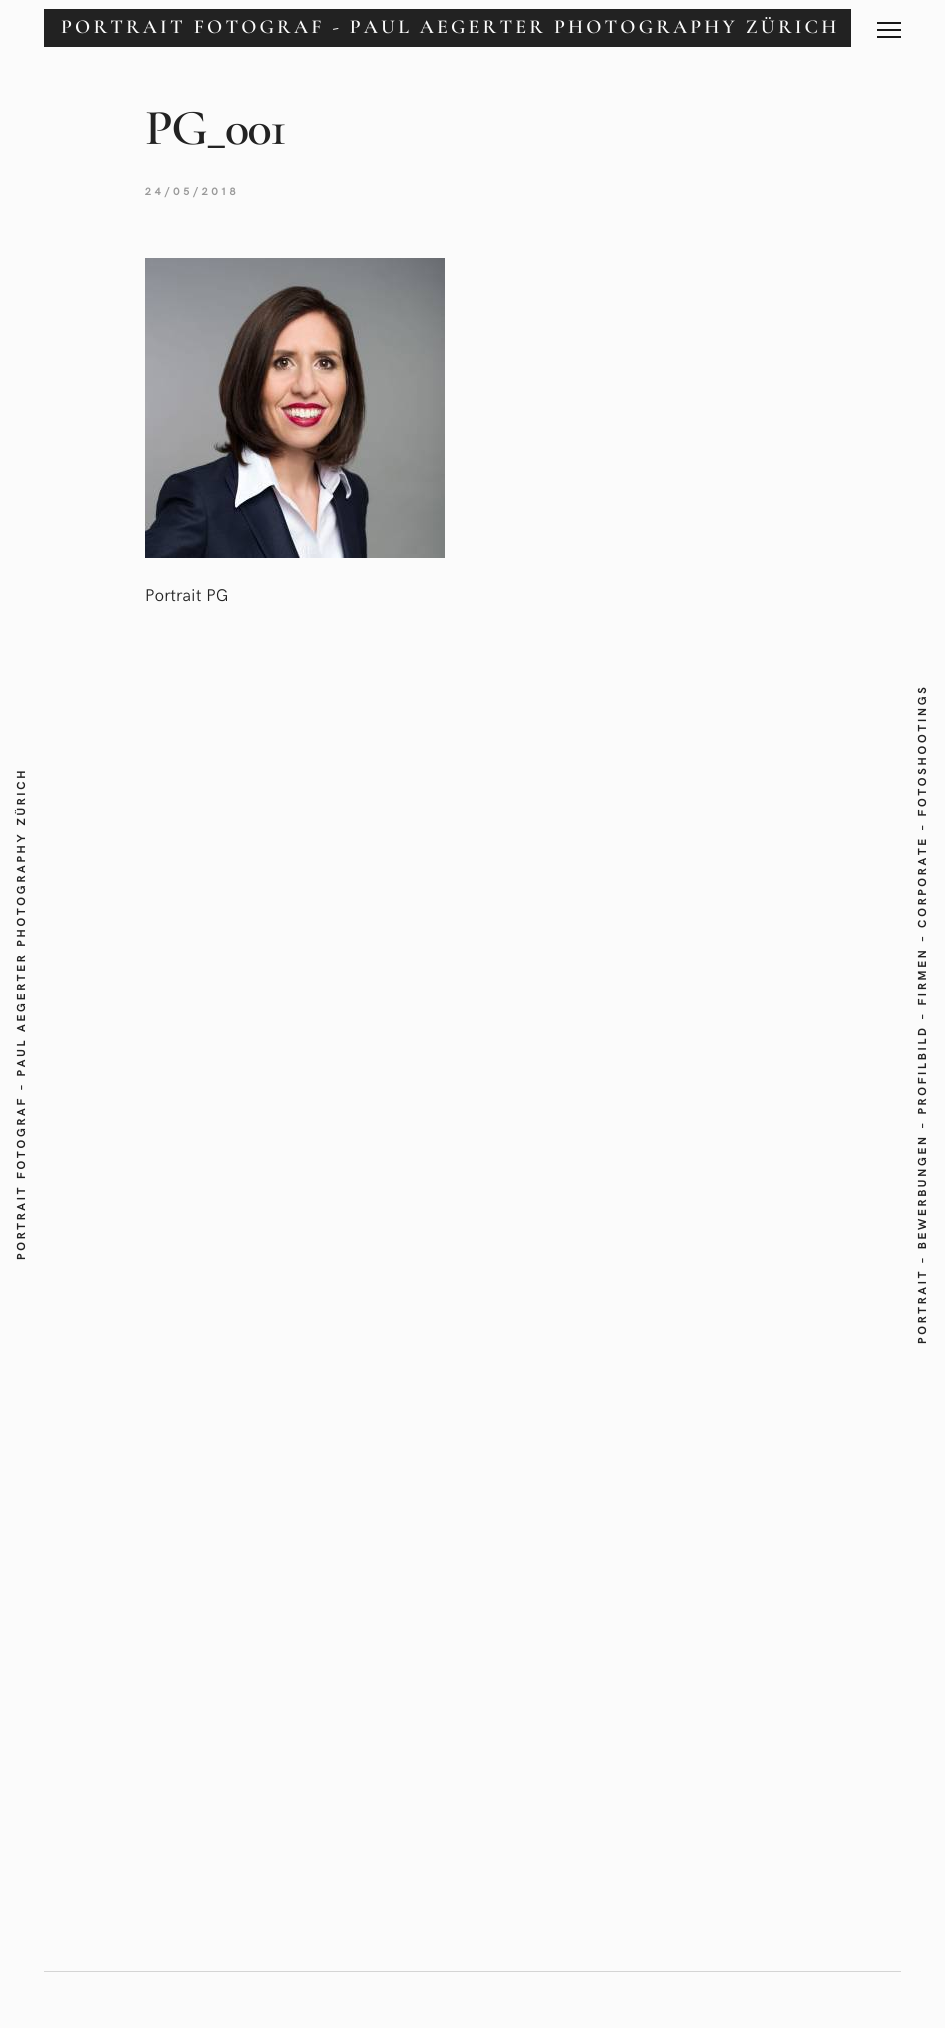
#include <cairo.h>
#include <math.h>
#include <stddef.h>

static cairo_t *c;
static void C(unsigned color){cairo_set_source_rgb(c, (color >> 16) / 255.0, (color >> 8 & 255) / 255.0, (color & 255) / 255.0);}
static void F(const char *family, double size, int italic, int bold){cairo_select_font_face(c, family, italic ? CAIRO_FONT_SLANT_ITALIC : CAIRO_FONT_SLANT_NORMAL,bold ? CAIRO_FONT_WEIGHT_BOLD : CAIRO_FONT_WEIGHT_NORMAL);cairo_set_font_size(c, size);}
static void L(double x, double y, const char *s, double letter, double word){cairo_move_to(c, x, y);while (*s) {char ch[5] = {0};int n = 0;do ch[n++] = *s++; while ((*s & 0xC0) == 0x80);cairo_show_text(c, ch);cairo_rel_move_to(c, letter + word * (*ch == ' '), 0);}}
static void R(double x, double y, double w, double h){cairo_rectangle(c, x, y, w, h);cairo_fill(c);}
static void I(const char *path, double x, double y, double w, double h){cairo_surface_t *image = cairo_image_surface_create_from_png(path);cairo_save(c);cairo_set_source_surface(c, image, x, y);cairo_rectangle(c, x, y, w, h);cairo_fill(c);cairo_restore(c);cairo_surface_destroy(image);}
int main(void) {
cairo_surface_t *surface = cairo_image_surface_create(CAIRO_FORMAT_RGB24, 945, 2028);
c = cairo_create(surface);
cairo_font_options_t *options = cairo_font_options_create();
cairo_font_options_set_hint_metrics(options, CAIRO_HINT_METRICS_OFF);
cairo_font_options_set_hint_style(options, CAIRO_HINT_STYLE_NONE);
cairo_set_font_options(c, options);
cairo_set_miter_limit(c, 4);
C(0xfbfbfb);
cairo_paint(c);
C(0x222222);
R(44,9,807,38);
F("Cormorant Garamond SemiBold",19.8,0,0);
C(0xfbfbfb);
L(61,33,"PORTRAIT FOTOGRAF - PAUL AEGERTER PHOTOGRAPHY ZÜRICH",3.17,0);
C(0x181818);
R(877,22,24,2);
R(877,29,24,2);
R(877,36,24,2);
F("Cormorant Garamond SemiBold",50.5,0,0);
C(0x222222);
L(145,144,"PG_001",-1.5,0);
F("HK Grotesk",10.75,0,1);
C(0x999999);
L(145,195,"24/05/2018",3.75,0);
I("1.png",145,258,300,300);
F("HK Grotesk Light",17,0,0);
C(0x222222);
L(145,601,"Portrait PG",.1,0);
F("HK Grotesk",11.7,0,1);
cairo_save(c);
cairo_translate(c,25,1260);
cairo_rotate(c,-90 * M_PI / 180);
L(0,0,"PORTRAIT FOTOGRAF – PAUL AEGERTER PHOTOGRAPHY ZÜRICH",2.8,0);
cairo_restore(c);
cairo_save(c);
cairo_translate(c,926,1344);
cairo_rotate(c,-90 * M_PI / 180);
L(0,0,"PORTRAIT – BEWERBUNGEN – PROFILBILD – FIRMEN – CORPORATE – FOTOSHOOTINGS",2.8,0);
cairo_restore(c);
C(0xd4d4d4);
R(44,1971,857,1);
cairo_surface_write_to_png(surface, "o.png");
cairo_font_options_destroy(options);
cairo_destroy(c);
cairo_surface_destroy(surface);
return 0;
}
